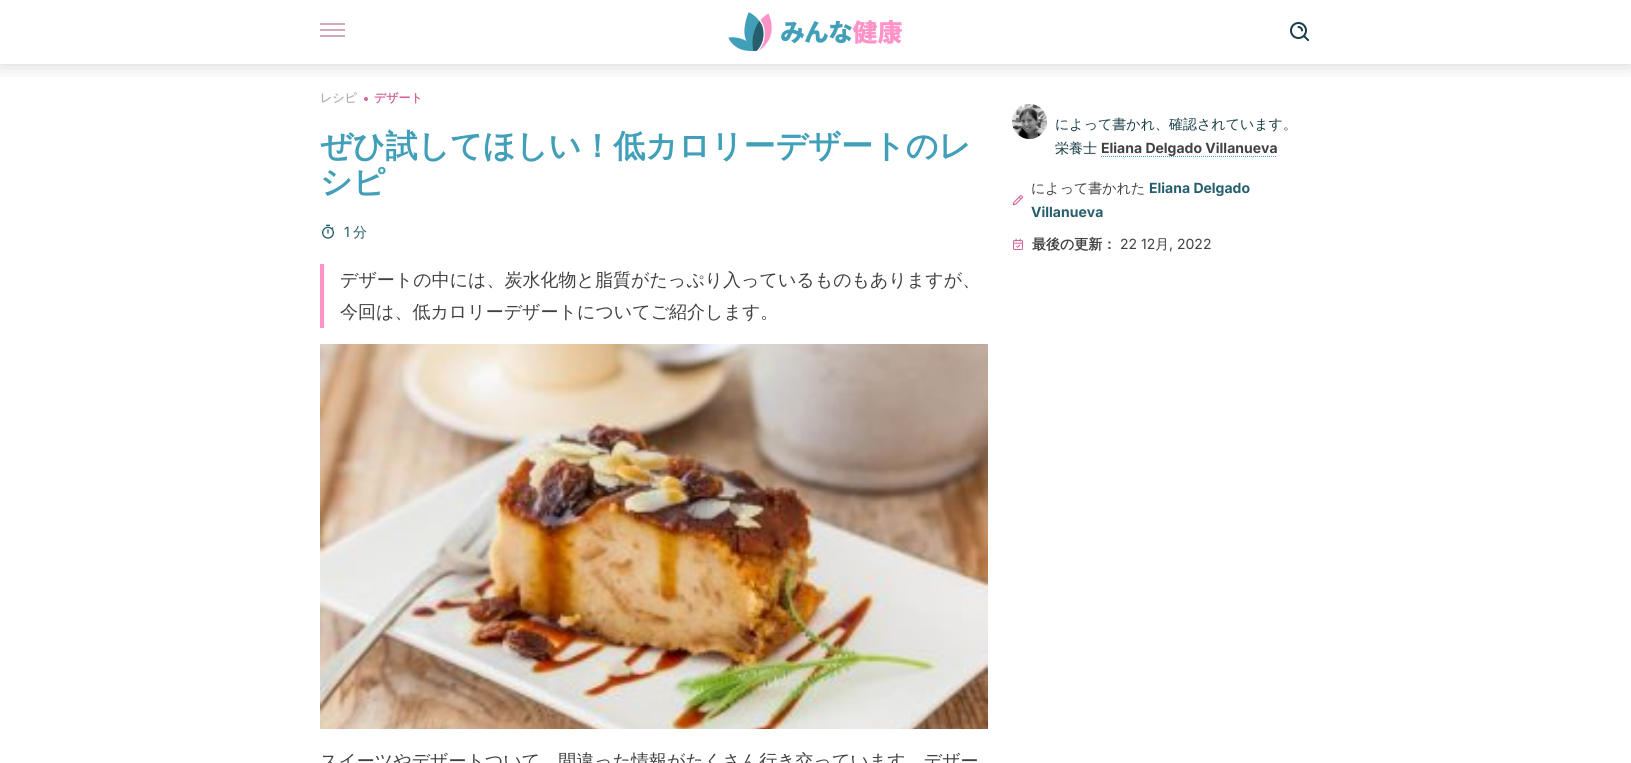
#include <cairo.h>
#include <math.h>
#include <stddef.h>

static cairo_t *c;
static void C(unsigned color){cairo_set_source_rgb(c, (color >> 16) / 255.0, (color >> 8 & 255) / 255.0, (color & 255) / 255.0);}
static void F(const char *family, double size, int italic, int bold){cairo_select_font_face(c, family, italic ? CAIRO_FONT_SLANT_ITALIC : CAIRO_FONT_SLANT_NORMAL,bold ? CAIRO_FONT_WEIGHT_BOLD : CAIRO_FONT_WEIGHT_NORMAL);cairo_set_font_size(c, size);}
static void T(double x, double y, const char *s){cairo_move_to(c, x, y);cairo_show_text(c, s);}
static void R(double x, double y, double w, double h){cairo_rectangle(c, x, y, w, h);cairo_fill(c);}
static void Q(double x, double y, double w, double h, double r){cairo_new_sub_path(c);cairo_arc(c, x + w - r, y + h - r, r, 0, M_PI / 2);cairo_arc(c, x + r, y + h - r, r, M_PI / 2, M_PI);cairo_arc(c, x + r, y + r, r, M_PI, 1.5 * M_PI);cairo_arc(c, x + w - r, y + r, r, 1.5 * M_PI, 2 * M_PI);cairo_close_path(c);}
static void S(double x, double y, double w, double h, double r, double blur, double alpha){cairo_push_group_with_content(c, CAIRO_CONTENT_ALPHA);cairo_set_operator(c, CAIRO_OPERATOR_SOURCE);for (int i = 15; i >= -15 && fmin(w, h) + blur * i / 3 > 0; i -= 2) {double e = blur * i / 6;cairo_set_source_rgba(c, 0, 0, 0, alpha * erfc((i - 1) / 8.5) / 2);Q(x - e, y - e, w + 2 * e, h + 2 * e, fmax(0, fmin(r + e + blur * .6, fmin(w, h) / 2 + e)));cairo_fill(c);}cairo_pattern_t *soft = cairo_pop_group(c);cairo_mask(c, soft);cairo_pattern_destroy(soft);}
static void I(const char *path, double x, double y, double w, double h){cairo_surface_t *image = cairo_image_surface_create_from_png(path);cairo_save(c);cairo_set_source_surface(c, image, x, y);cairo_rectangle(c, x, y, w, h);cairo_fill(c);cairo_restore(c);cairo_surface_destroy(image);}
int main(void) {
cairo_surface_t *surface = cairo_image_surface_create(CAIRO_FORMAT_RGB24, 1631, 763);
c = cairo_create(surface);
cairo_font_options_t *options = cairo_font_options_create();
cairo_font_options_set_hint_metrics(options, CAIRO_HINT_METRICS_OFF);
cairo_font_options_set_hint_style(options, CAIRO_HINT_STYLE_NONE);
cairo_set_font_options(c, options);
cairo_set_miter_limit(c, 4);
C(0xffffff);
cairo_paint(c);
cairo_save(c);
cairo_rectangle(c,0,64,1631,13);
cairo_clip(c);
C(0x000000);
S(0,-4,1631,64,0,12,.25);
cairo_restore(c);
C(0xd4a8bd);
R(320,23,25,2);
R(320,29,25,2);
R(320,35,25,2);
I("1.png",728,12,174,39);
I("2.png",1290,22,20,20);
F("WenQuanYi Zen Hei",12,0,1);
C(0xb1b1b1);
T(320,102,"レシピ");
C(0xd4649a);
cairo_new_path(c);
cairo_arc(c,366,99,2,0,2 * M_PI);
cairo_fill(c);
T(374,102,"デザート");
F("WenQuanYi Zen Hei",32,0,1);
C(0x419fb9);
T(320,157,"ぜひ試してほしい！低カロリーデザートのレ");
T(320,193,"シピ");
I("3.png",322,224,12,15);
F("Inter",14,0,0);
C(0x265e6c);
T(344,237,"1");
F("WenQuanYi Zen Hei Medium",14,0,0);
T(353,237,"分");
C(0xff93c7);
R(320,264,4,64);
F("WenQuanYi Zen Hei Medium",18,0,0);
C(0x414141);
T(340,286,"デザートの中には、炭水化物と脂質がたっぷり入っているものもありますが、");
T(340,318,"今回は、低カロリーデザートについてご紹介します。");
I("4.png",320,344,668,385);
T(320,767,"スイーツやデザートついて、間違った情報がたくさん行き交っています。デザー");
I("5.png",1012,104,35,35);
F("WenQuanYi Zen Hei Medium",14,0,0);
C(0x183d46);
T(1055,129,"によって書かれ、確認されています。");
T(1055,153,"栄養士");
F("Inter",14,0,1);
C(0x414141);
T(1101,153,"Eliana Delgado Villanueva");
cairo_new_path(c);
cairo_move_to(c,1101,156.5);
cairo_line_to(c,1277,156.5);
C(0x419fb9);
cairo_set_line_width(c,1);
cairo_set_dash(c,(double[]){1,1},2,0);
cairo_stroke(c);
I("6.png",1012,195,11,11);
F("WenQuanYi Zen Hei Medium",14,0,0);
C(0x414141);
T(1031,193,"によって書かれた");
F("Inter",14,0,1);
C(0x265e6c);
T(1149,193,"Eliana Delgado");
T(1031,217,"Villanueva");
I("7.png",1013,238,11,12);
F("WenQuanYi Zen Hei",14,0,1);
C(0x414141);
T(1032,249,"最後の更新：");
F("Inter",14,0,0);
T(1120,249,"22 12");
F("WenQuanYi Zen Hei Medium",14,0,0);
T(1155,249,"月");
F("Inter",14,0,0);
T(1169,249,", 2022");
cairo_surface_write_to_png(surface, "o.png");
cairo_font_options_destroy(options);
cairo_destroy(c);
cairo_surface_destroy(surface);
return 0;
}
